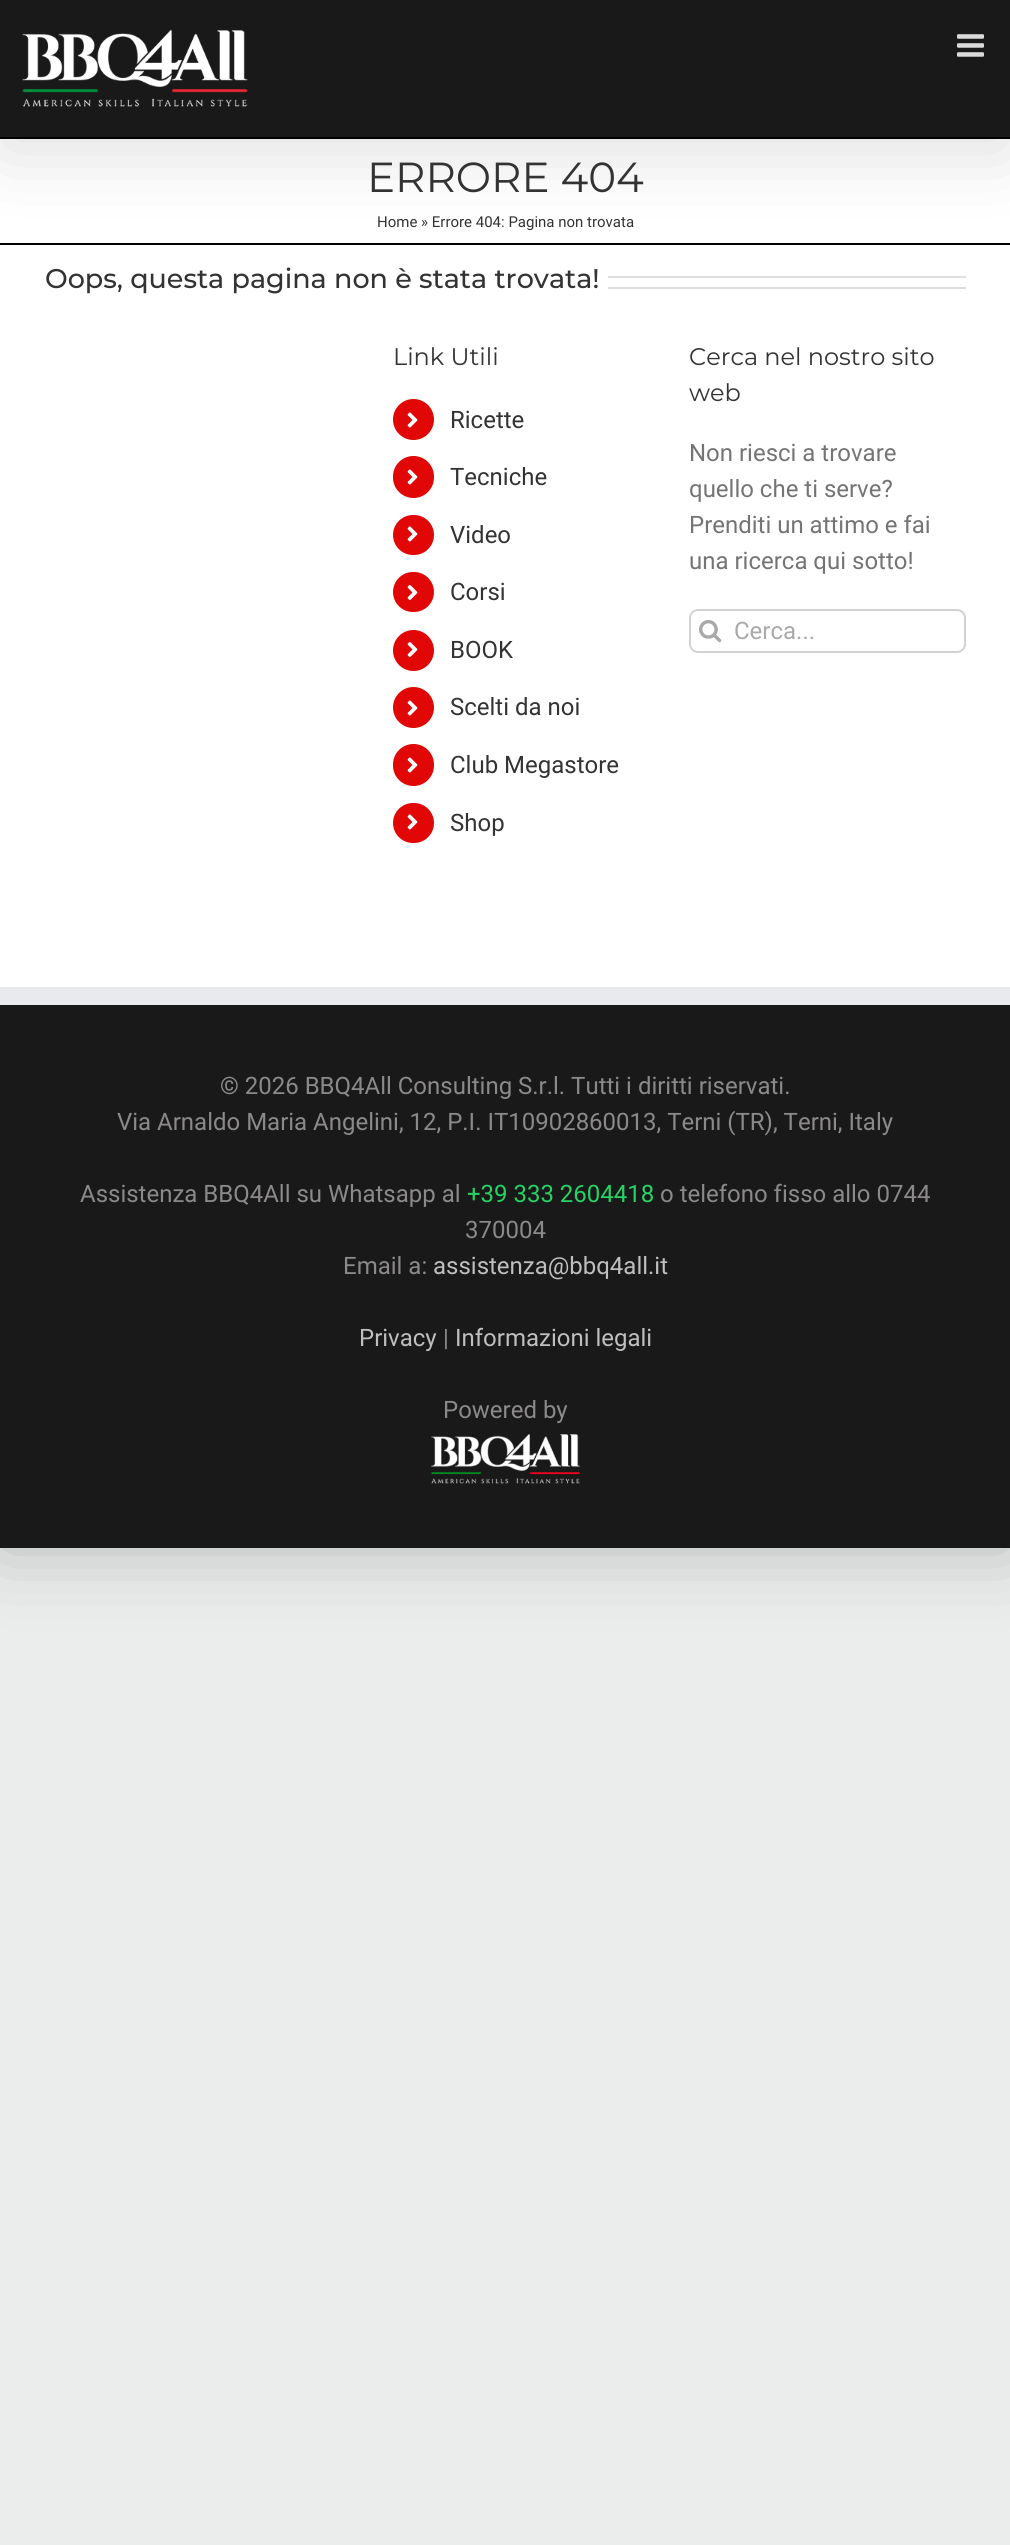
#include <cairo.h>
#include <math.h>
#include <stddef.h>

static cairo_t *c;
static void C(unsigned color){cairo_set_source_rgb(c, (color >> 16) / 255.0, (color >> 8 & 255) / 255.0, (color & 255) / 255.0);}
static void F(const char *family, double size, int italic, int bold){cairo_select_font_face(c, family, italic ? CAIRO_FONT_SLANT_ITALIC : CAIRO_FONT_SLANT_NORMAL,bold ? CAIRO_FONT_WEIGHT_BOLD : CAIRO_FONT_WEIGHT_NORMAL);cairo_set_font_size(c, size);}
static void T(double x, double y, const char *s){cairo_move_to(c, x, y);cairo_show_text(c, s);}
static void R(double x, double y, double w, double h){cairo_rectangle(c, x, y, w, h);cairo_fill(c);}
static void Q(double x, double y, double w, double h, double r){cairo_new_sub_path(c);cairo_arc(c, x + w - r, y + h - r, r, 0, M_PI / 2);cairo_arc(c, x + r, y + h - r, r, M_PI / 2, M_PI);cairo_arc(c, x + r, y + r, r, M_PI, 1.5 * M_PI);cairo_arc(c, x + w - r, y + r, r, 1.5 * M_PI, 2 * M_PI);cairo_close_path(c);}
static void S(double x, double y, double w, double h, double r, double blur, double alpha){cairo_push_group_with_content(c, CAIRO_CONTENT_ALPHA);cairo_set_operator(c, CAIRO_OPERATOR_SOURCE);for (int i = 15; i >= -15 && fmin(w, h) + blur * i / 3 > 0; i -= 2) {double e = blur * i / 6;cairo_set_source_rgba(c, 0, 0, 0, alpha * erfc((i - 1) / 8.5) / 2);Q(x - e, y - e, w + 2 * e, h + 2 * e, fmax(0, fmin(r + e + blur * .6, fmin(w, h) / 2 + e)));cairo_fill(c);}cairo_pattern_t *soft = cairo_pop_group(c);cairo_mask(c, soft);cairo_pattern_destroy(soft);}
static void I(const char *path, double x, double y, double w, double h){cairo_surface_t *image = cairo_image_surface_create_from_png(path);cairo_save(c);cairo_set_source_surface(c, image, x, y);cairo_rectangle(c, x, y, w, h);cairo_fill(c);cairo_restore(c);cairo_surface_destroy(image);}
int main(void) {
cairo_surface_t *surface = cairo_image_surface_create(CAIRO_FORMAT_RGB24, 1010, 2545);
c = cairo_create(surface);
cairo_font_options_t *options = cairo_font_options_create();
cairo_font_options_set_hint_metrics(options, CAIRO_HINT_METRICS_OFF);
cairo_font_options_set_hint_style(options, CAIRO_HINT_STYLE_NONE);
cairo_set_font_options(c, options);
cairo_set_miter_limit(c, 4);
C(0xebeded);
cairo_paint(c);
C(0x000000);
S(-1,-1,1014,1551,0,37.5,.22);
C(0xffffff);
R(0,139,1010,104);
C(0x000000);
R(0,137,1010,2);
R(0,243,1010,2);
C(0xffffff);
R(0,245,1010,742);
C(0x000000);
S(3,18,1005,131,0,37.5,.14);
C(0x191919);
R(0,0,1010,137);
I("1.png",22,30,226,77);
I("2.png",957,34,27,23);
F("Montserrat",42,0,0);
C(0x333333);
T(367,192,"ERRORE 404");
F("Roboto",15,0,0);
T(377,227,"Home » Errore 404: Pagina non trovata");
F("Montserrat Medium",27,0,0);
T(45,288,"Oops, questa pagina non è stata trovata!");
C(0xe0dede);
R(608,276,358,2);
R(608,287,358,2);
F("Montserrat",24,0,0);
C(0x333333);
T(393,365,"Link Utili");
C(0xe10707);
cairo_new_path(c);
cairo_arc(c,413.5,419.5,20.5,0,2 * M_PI);
cairo_fill(c);
I("3.png",407,412,11,16);
F("Roboto",24,0,0);
C(0x333333);
T(450,428,"Ricette");
C(0xe10707);
Q(393,456,41,42,20.5);
cairo_fill(c);
I("3.png",407,469,11,16);
C(0x333333);
T(450,485,"Tecniche");
C(0xe10707);
Q(393,515,41,40,20);
cairo_fill(c);
I("3.png",407,526,11,16);
C(0x333333);
T(450,543,"Video");
C(0xe10707);
Q(393,572,41,40,20);
cairo_fill(c);
I("4.png",407,585,11,15);
C(0x333333);
T(450,600,"Corsi");
C(0xe10707);
cairo_new_path(c);
cairo_arc(c,413.5,650.5,20.5,0,2 * M_PI);
cairo_fill(c);
I("4.png",407,642,11,15);
C(0x333333);
T(450,658,"BOOK");
C(0xe10707);
cairo_new_path(c);
cairo_arc(c,413.5,707.5,20.5,0,2 * M_PI);
cairo_fill(c);
I("3.png",407,700,11,16);
C(0x333333);
T(450,715,"Scelti da noi");
C(0xe10707);
Q(393,744,41,42,20.5);
cairo_fill(c);
I("3.png",407,757,11,16);
C(0x333333);
T(450,773,"Club Megastore");
C(0xe10707);
Q(393,803,41,40,20);
cairo_fill(c);
I("3.png",407,814,11,16);
C(0x333333);
T(450,831,"Shop");
F("Montserrat",24,0,0);
T(689,365,"Cerca nel nostro sito");
T(689,401,"web");
F("Roboto",24,0,0);
C(0x747474);
T(689,461,"Non riesci a trovare");
T(689,497,"quello che ti serve?");
T(689,533,"Prenditi un attimo e fai");
T(689,569,"una ricerca qui sotto!");
Q(690,610,275,42,8);
C(0xd2d2d2);
cairo_stroke(c);
I("5.png",699,619,23,24);
C(0xaaa9a9);
T(734,639,"Cerca...");
C(0x191919);
R(0,1005,1010,543);
C(0xe9eaee);
R(0,987,1010,18);
C(0x8c8989);
T(220,1094,"© 2026 BBQ4All Consulting S.r.l. Tutti i diritti riservati.");
T(117,1130,"Via Arnaldo Maria Angelini, 12, P.I. IT10902860013, Terni (TR), Terni, Italy");
T(80,1202,"Assistenza BBQ4All su Whatsapp al");
C(0x25d366);
T(467,1202,"+39 333 2604418");
C(0x8c8989);
T(660,1202,"o telefono fisso allo 0744");
T(465,1238,"370004");
T(343,1274,"Email a:");
C(0xbfbfbf);
T(433,1274,"assistenza@bbq4all.it");
T(359,1346,"Privacy");
C(0x8c8989);
T(443,1346,"|");
C(0xbfbfbf);
T(455,1346,"Informazioni legali");
C(0x8c8989);
T(443,1418,"Powered by");
I("6.png",431,1434,149,50);
cairo_surface_write_to_png(surface, "o.png");
cairo_font_options_destroy(options);
cairo_destroy(c);
cairo_surface_destroy(surface);
return 0;
}
